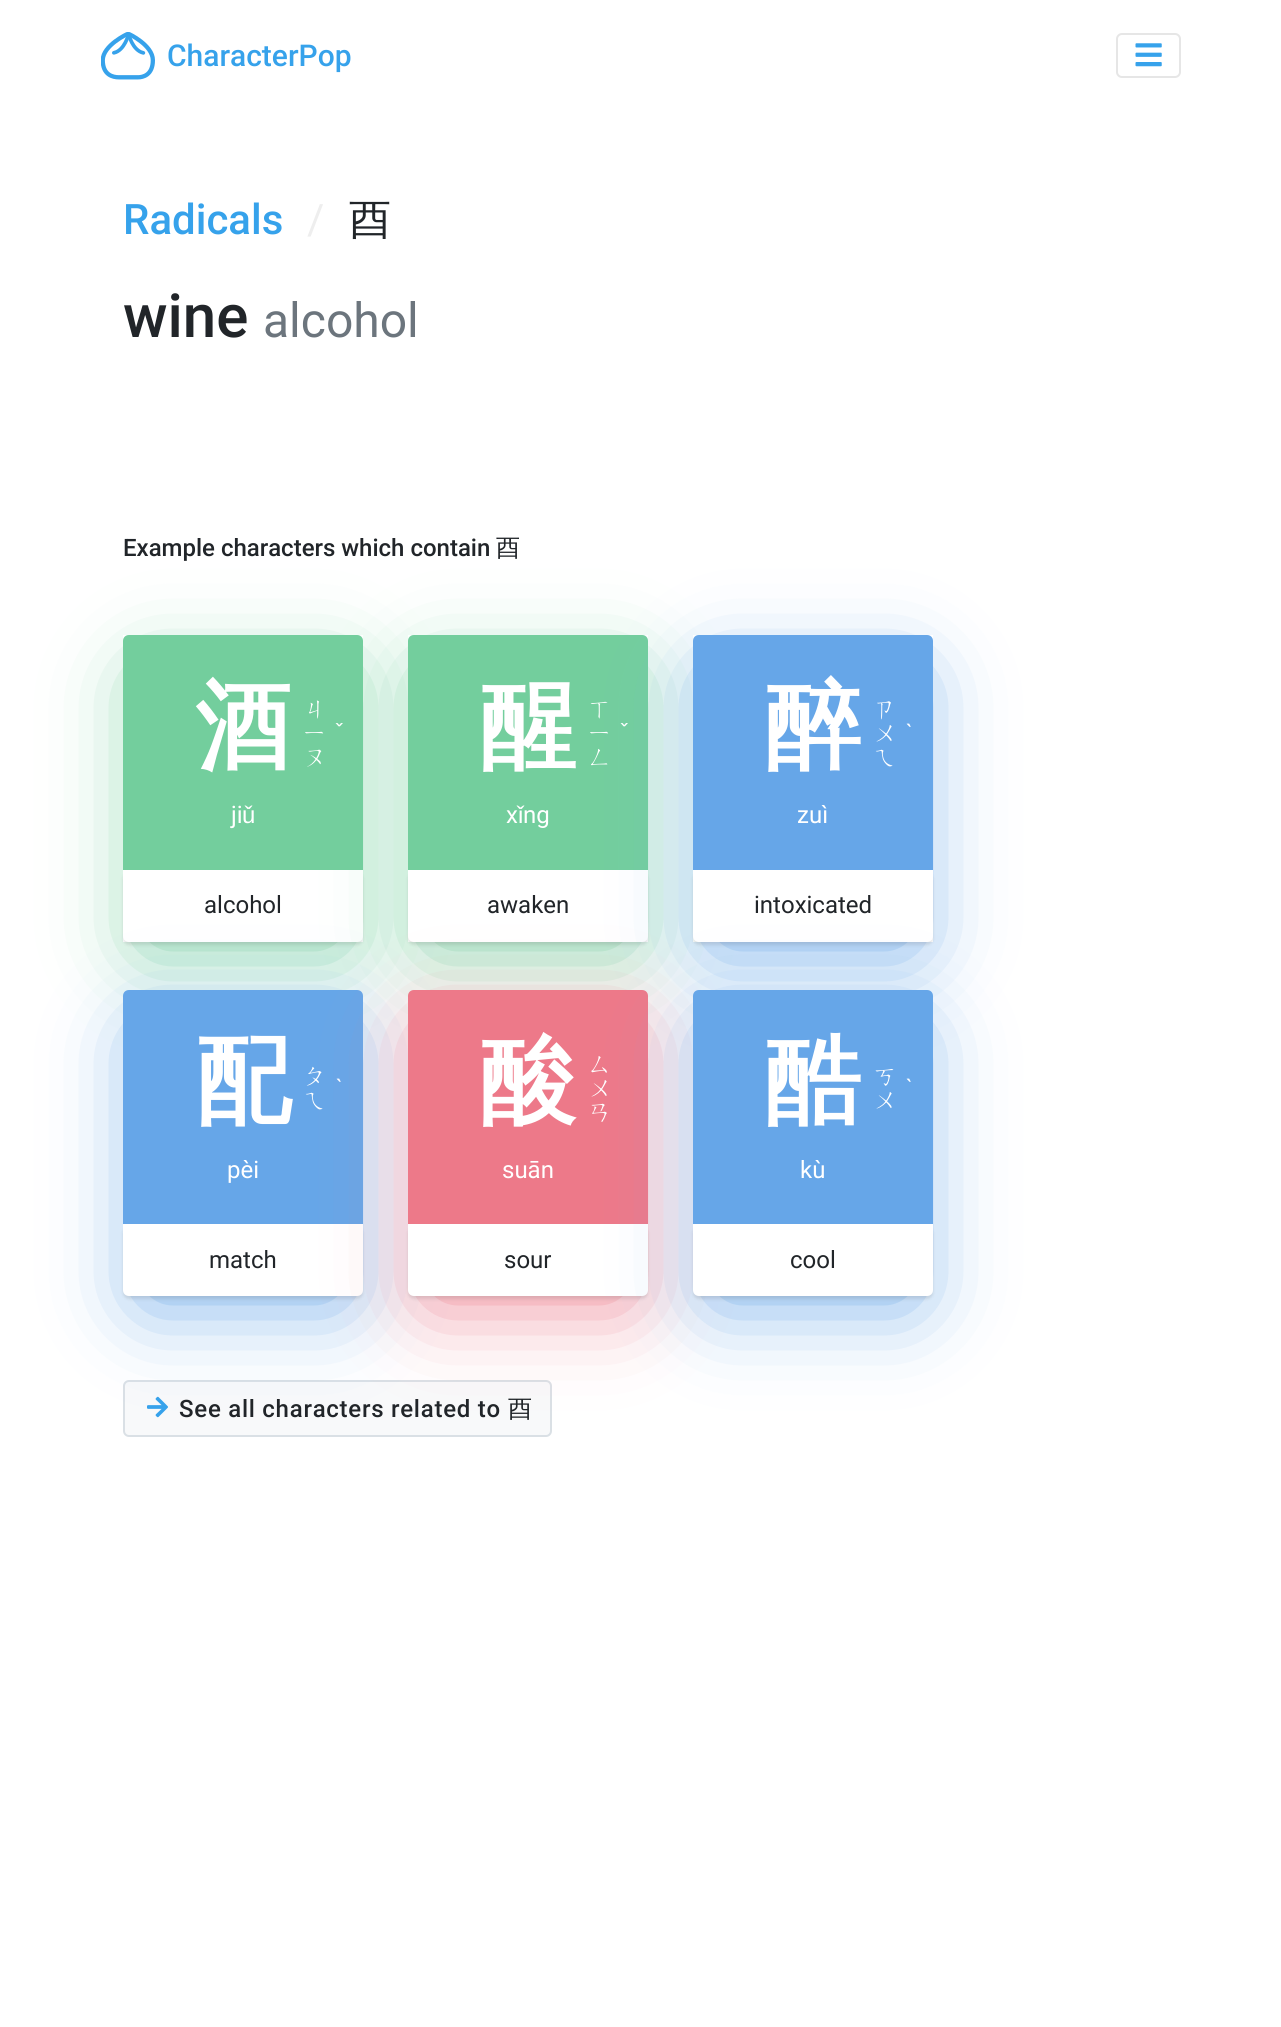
#include <cairo.h>
#include <math.h>
#include <stddef.h>

static cairo_t *c;
static void C(unsigned color){cairo_set_source_rgb(c, (color >> 16) / 255.0, (color >> 8 & 255) / 255.0, (color & 255) / 255.0);}
static void F(const char *family, double size, int italic, int bold){cairo_select_font_face(c, family, italic ? CAIRO_FONT_SLANT_ITALIC : CAIRO_FONT_SLANT_NORMAL,bold ? CAIRO_FONT_WEIGHT_BOLD : CAIRO_FONT_WEIGHT_NORMAL);cairo_set_font_size(c, size);}
static void T(double x, double y, const char *s){cairo_move_to(c, x, y);cairo_show_text(c, s);}
static void L(double x, double y, const char *s, double letter, double word){cairo_move_to(c, x, y);while (*s) {char ch[5] = {0};int n = 0;do ch[n++] = *s++; while ((*s & 0xC0) == 0x80);cairo_show_text(c, ch);cairo_rel_move_to(c, letter + word * (*ch == ' '), 0);}}
static void Q(double x, double y, double w, double h, double r){cairo_new_sub_path(c);cairo_arc(c, x + w - r, y + h - r, r, 0, M_PI / 2);cairo_arc(c, x + r, y + h - r, r, M_PI / 2, M_PI);cairo_arc(c, x + r, y + r, r, M_PI, 1.5 * M_PI);cairo_arc(c, x + w - r, y + r, r, 1.5 * M_PI, 2 * M_PI);cairo_close_path(c);}
static void S(double x, double y, double w, double h, double r, double blur, double alpha){cairo_push_group_with_content(c, CAIRO_CONTENT_ALPHA);cairo_set_operator(c, CAIRO_OPERATOR_SOURCE);for (int i = 15; i >= -15 && fmin(w, h) + blur * i / 3 > 0; i -= 2) {double e = blur * i / 6;cairo_set_source_rgba(c, 0, 0, 0, alpha * erfc((i - 1) / 8.5) / 2);Q(x - e, y - e, w + 2 * e, h + 2 * e, fmax(0, fmin(r + e + blur * .6, fmin(w, h) / 2 + e)));cairo_fill(c);}cairo_pattern_t *soft = cairo_pop_group(c);cairo_mask(c, soft);cairo_pattern_destroy(soft);}
static void I(const char *path, double x, double y, double w, double h){cairo_surface_t *image = cairo_image_surface_create_from_png(path);cairo_save(c);cairo_set_source_surface(c, image, x, y);cairo_rectangle(c, x, y, w, h);cairo_fill(c);cairo_restore(c);cairo_surface_destroy(image);}
int main(void) {
cairo_surface_t *surface = cairo_image_surface_create(CAIRO_FORMAT_RGB24, 1281, 2027);
c = cairo_create(surface);
cairo_font_options_t *options = cairo_font_options_create();
cairo_font_options_set_hint_metrics(options, CAIRO_HINT_METRICS_OFF);
cairo_font_options_set_hint_style(options, CAIRO_HINT_STYLE_NONE);
cairo_set_font_options(c, options);
cairo_set_miter_limit(c, 4);
C(0xffffff);
cairo_paint(c);
I("1.png",101,32,54,48);
F("Roboto Medium",30,0,0);
C(0x36a2eb);
T(167,66,"CharacterPop");
Q(1117,34,63,43,5);
C(0xe6e6e6);
cairo_stroke(c);
I("2.png",1135,43,27,24);
F("Roboto Medium",42,0,0);
C(0x36a2eb);
T(123,234,"Radicals");
F("Roboto",42,0,0);
C(0xeeeeee);
T(307,234,"/");
F("WenQuanYi Zen Hei Medium",42,0,0);
C(0x212529);
T(349,234,"酉");
F("Roboto Medium",60,0,0);
T(123,337,"wine");
F("Roboto",48,0,0);
C(0x6c757d);
T(263,337,"alcohol");
F("Roboto Medium",24,0,0);
C(0x212529);
T(123,556,"Example characters which contain");
F("WenQuanYi Zen Hei Medium",24,0,0);
T(496,556,"酉");
cairo_save(c);
cairo_set_fill_rule(c,CAIRO_FILL_RULE_EVEN_ODD);
cairo_new_path(c);
cairo_move_to(c,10,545);
cairo_line_to(c,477,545);
cairo_line_to(c,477,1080);
cairo_line_to(c,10,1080);
cairo_close_path(c);
cairo_move_to(c,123,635);
cairo_line_to(c,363,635);
cairo_line_to(c,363,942);
cairo_line_to(c,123,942);
cairo_close_path(c);
cairo_clip(c);
C(0x73ce9d);
S(146,681,195,263,0,45,1);
cairo_restore(c);
C(0x000000);
S(123,873,240,72,6,1.5,.1);
C(0x73ce9d);
cairo_new_path(c);
cairo_move_to(c,129,635);
cairo_line_to(c,357,635);
cairo_curve_to(c,360.5,635,363,637.5,363,641);
cairo_line_to(c,363,870);
cairo_line_to(c,123,870);
cairo_line_to(c,123,641);
cairo_curve_to(c,123,637.5,125.5,635,129,635);
cairo_close_path(c);
cairo_fill(c);
F("WenQuanYi Zen Hei",96,0,1);
C(0xffffff);
T(195,759,"酒");
F("WenQuanYi Zen Hei Medium",24,0,0);
T(303,717,"ㄐ");
T(303,741,"ㄧ");
T(303,765,"ㄡ");
F("Roboto",24,0,0);
T(334,741,"ˇ");
T(231,823,"ji");
F("Liberation Sans",24,0,0);
T(242,823,"ǔ");
cairo_new_path(c);
cairo_move_to(c,123,870);
cairo_line_to(c,363,870);
cairo_line_to(c,363,936);
cairo_curve_to(c,363,939.5,360.5,942,357,942);
cairo_line_to(c,129,942);
cairo_curve_to(c,125.5,942,123,939.5,123,936);
cairo_close_path(c);
cairo_fill(c);
F("Roboto",24,0,0);
C(0x212529);
T(204,913,"alcohol");
cairo_save(c);
cairo_set_fill_rule(c,CAIRO_FILL_RULE_EVEN_ODD);
cairo_new_path(c);
cairo_move_to(c,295,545);
cairo_line_to(c,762,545);
cairo_line_to(c,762,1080);
cairo_line_to(c,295,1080);
cairo_close_path(c);
cairo_move_to(c,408,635);
cairo_line_to(c,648,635);
cairo_line_to(c,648,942);
cairo_line_to(c,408,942);
cairo_close_path(c);
cairo_clip(c);
C(0x73ce9d);
S(431,681,195,263,0,45,1);
cairo_restore(c);
C(0x000000);
S(408,873,240,72,6,1.5,.1);
C(0x73ce9d);
cairo_new_path(c);
cairo_move_to(c,414,635);
cairo_line_to(c,642,635);
cairo_curve_to(c,645.5,635,648,637.5,648,641);
cairo_line_to(c,648,870);
cairo_line_to(c,408,870);
cairo_line_to(c,408,641);
cairo_curve_to(c,408,637.5,410.5,635,414,635);
cairo_close_path(c);
cairo_fill(c);
F("WenQuanYi Zen Hei",96,0,1);
C(0xffffff);
T(480,759,"醒");
F("WenQuanYi Zen Hei Medium",24,0,0);
T(588,717,"ㄒ");
T(588,741,"ㄧ");
T(588,765,"ㄥ");
F("Roboto",24,0,0);
T(619,741,"ˇ");
T(506,823,"x");
F("Liberation Sans",24,0,0);
T(518,823,"ǐ");
F("Roboto",24,0,0);
T(523,823,"ng");
cairo_new_path(c);
cairo_move_to(c,408,870);
cairo_line_to(c,648,870);
cairo_line_to(c,648,936);
cairo_curve_to(c,648,939.5,645.5,942,642,942);
cairo_line_to(c,414,942);
cairo_curve_to(c,410.5,942,408,939.5,408,936);
cairo_close_path(c);
cairo_fill(c);
C(0x212529);
T(487,913,"awaken");
cairo_save(c);
cairo_set_fill_rule(c,CAIRO_FILL_RULE_EVEN_ODD);
cairo_new_path(c);
cairo_move_to(c,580,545);
cairo_line_to(c,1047,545);
cairo_line_to(c,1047,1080);
cairo_line_to(c,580,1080);
cairo_close_path(c);
cairo_move_to(c,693,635);
cairo_line_to(c,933,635);
cairo_line_to(c,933,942);
cairo_line_to(c,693,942);
cairo_close_path(c);
cairo_clip(c);
C(0x66a6e8);
S(716,681,195,263,0,45,1);
cairo_restore(c);
C(0x000000);
S(693,873,240,72,6,1.5,.1);
C(0x66a6e8);
cairo_new_path(c);
cairo_move_to(c,699,635);
cairo_line_to(c,927,635);
cairo_curve_to(c,930.5,635,933,637.5,933,641);
cairo_line_to(c,933,870);
cairo_line_to(c,693,870);
cairo_line_to(c,693,641);
cairo_curve_to(c,693,637.5,695.5,635,699,635);
cairo_close_path(c);
cairo_fill(c);
F("WenQuanYi Zen Hei",96,0,1);
C(0xffffff);
T(765,759,"醉");
F("WenQuanYi Zen Hei Medium",24,0,0);
T(873,717,"ㄗ");
T(873,741,"ㄨ");
T(873,765,"ㄟ");
F("Liberation Sans",24,0,0);
T(905,741,"ˋ");
F("Roboto",24,0,0);
T(797,823,"zuì");
cairo_new_path(c);
cairo_move_to(c,693,870);
cairo_line_to(c,933,870);
cairo_line_to(c,933,936);
cairo_curve_to(c,933,939.5,930.5,942,927,942);
cairo_line_to(c,699,942);
cairo_curve_to(c,695.5,942,693,939.5,693,936);
cairo_close_path(c);
cairo_fill(c);
C(0x212529);
T(754,913,"intoxicated");
C(0xf8f9fa);
Q(124,1381,427,55,5);
cairo_fill_preserve(c);
C(0xdae0e5);
cairo_stroke(c);
I("3.png",147,1396,21,22);
C(0x66a6e8);
S(146,1037,195,261,0,45,1);
C(0x000000);
S(123,1227,240,72,6,1.5,.1);
C(0x66a6e8);
cairo_new_path(c);
cairo_move_to(c,129,990);
cairo_line_to(c,357,990);
cairo_curve_to(c,360.5,990,363,992.5,363,996);
cairo_line_to(c,363,1224);
cairo_line_to(c,123,1224);
cairo_line_to(c,123,996);
cairo_curve_to(c,123,992.5,125.5,990,129,990);
cairo_close_path(c);
cairo_fill(c);
F("WenQuanYi Zen Hei",96,0,1);
C(0xffffff);
T(195,1114,"配");
F("WenQuanYi Zen Hei Medium",24,0,0);
T(303,1084,"ㄆ");
T(303,1108,"ㄟ");
F("Liberation Sans",24,0,0);
T(335,1096,"ˋ");
F("Roboto",24,0,0);
T(227,1178,"pèi");
cairo_new_path(c);
cairo_move_to(c,123,1224);
cairo_line_to(c,363,1224);
cairo_line_to(c,363,1290);
cairo_curve_to(c,363,1293.5,360.5,1296,357,1296);
cairo_line_to(c,129,1296);
cairo_curve_to(c,125.5,1296,123,1293.5,123,1290);
cairo_close_path(c);
cairo_fill(c);
C(0x212529);
T(209,1268,"match");
C(0xed7989);
S(431,1037,195,261,0,45,1);
C(0x000000);
S(408,1227,240,72,6,1.5,.1);
C(0xed7989);
cairo_new_path(c);
cairo_move_to(c,414,990);
cairo_line_to(c,642,990);
cairo_curve_to(c,645.5,990,648,992.5,648,996);
cairo_line_to(c,648,1224);
cairo_line_to(c,408,1224);
cairo_line_to(c,408,996);
cairo_curve_to(c,408,992.5,410.5,990,414,990);
cairo_close_path(c);
cairo_fill(c);
F("WenQuanYi Zen Hei",96,0,1);
C(0xffffff);
T(480,1114,"酸");
F("WenQuanYi Zen Hei Medium",24,0,0);
T(588,1072,"ㄙ");
T(588,1096,"ㄨ");
T(588,1120,"ㄢ");
F("Roboto",24,0,0);
T(502,1178,"suān");
cairo_new_path(c);
cairo_move_to(c,408,1224);
cairo_line_to(c,648,1224);
cairo_line_to(c,648,1290);
cairo_curve_to(c,648,1293.5,645.5,1296,642,1296);
cairo_line_to(c,414,1296);
cairo_curve_to(c,410.5,1296,408,1293.5,408,1290);
cairo_close_path(c);
cairo_fill(c);
C(0x212529);
T(504,1268,"sour");
C(0x66a6e8);
S(716,1037,195,261,0,45,1);
C(0x000000);
S(693,1227,240,72,6,1.5,.1);
C(0x66a6e8);
cairo_new_path(c);
cairo_move_to(c,699,990);
cairo_line_to(c,927,990);
cairo_curve_to(c,930.5,990,933,992.5,933,996);
cairo_line_to(c,933,1224);
cairo_line_to(c,693,1224);
cairo_line_to(c,693,996);
cairo_curve_to(c,693,992.5,695.5,990,699,990);
cairo_close_path(c);
cairo_fill(c);
F("WenQuanYi Zen Hei",96,0,1);
C(0xffffff);
T(765,1114,"酷");
F("WenQuanYi Zen Hei Medium",24,0,0);
T(873,1084,"ㄎ");
T(873,1108,"ㄨ");
F("Liberation Sans",24,0,0);
T(905,1096,"ˋ");
F("Roboto",24,0,0);
T(800,1178,"kù");
cairo_new_path(c);
cairo_move_to(c,693,1224);
cairo_line_to(c,933,1224);
cairo_line_to(c,933,1290);
cairo_curve_to(c,933,1293.5,930.5,1296,927,1296);
cairo_line_to(c,699,1296);
cairo_curve_to(c,695.5,1296,693,1293.5,693,1290);
cairo_close_path(c);
cairo_fill(c);
C(0x212529);
T(790,1268,"cool");
F("Roboto Medium",24,0,0);
L(179,1417,"See all characters related to",.75,0);
F("WenQuanYi Zen Hei Medium",24,0,0);
L(508,1417,"酉",.75,0);
cairo_surface_write_to_png(surface, "o.png");
cairo_font_options_destroy(options);
cairo_destroy(c);
cairo_surface_destroy(surface);
return 0;
}
